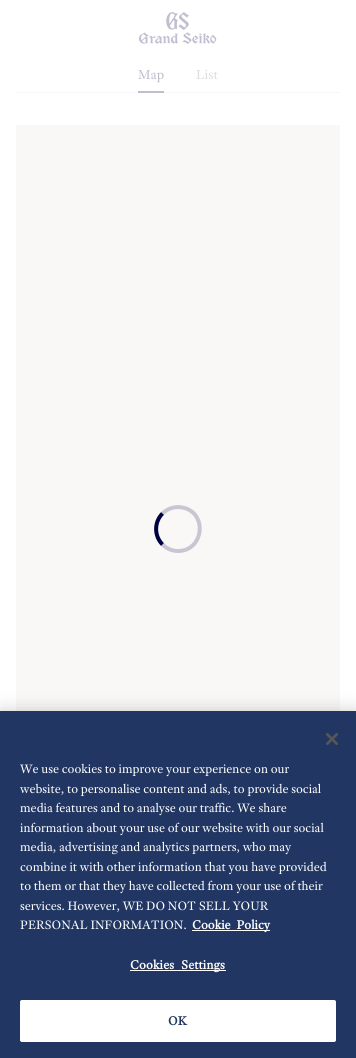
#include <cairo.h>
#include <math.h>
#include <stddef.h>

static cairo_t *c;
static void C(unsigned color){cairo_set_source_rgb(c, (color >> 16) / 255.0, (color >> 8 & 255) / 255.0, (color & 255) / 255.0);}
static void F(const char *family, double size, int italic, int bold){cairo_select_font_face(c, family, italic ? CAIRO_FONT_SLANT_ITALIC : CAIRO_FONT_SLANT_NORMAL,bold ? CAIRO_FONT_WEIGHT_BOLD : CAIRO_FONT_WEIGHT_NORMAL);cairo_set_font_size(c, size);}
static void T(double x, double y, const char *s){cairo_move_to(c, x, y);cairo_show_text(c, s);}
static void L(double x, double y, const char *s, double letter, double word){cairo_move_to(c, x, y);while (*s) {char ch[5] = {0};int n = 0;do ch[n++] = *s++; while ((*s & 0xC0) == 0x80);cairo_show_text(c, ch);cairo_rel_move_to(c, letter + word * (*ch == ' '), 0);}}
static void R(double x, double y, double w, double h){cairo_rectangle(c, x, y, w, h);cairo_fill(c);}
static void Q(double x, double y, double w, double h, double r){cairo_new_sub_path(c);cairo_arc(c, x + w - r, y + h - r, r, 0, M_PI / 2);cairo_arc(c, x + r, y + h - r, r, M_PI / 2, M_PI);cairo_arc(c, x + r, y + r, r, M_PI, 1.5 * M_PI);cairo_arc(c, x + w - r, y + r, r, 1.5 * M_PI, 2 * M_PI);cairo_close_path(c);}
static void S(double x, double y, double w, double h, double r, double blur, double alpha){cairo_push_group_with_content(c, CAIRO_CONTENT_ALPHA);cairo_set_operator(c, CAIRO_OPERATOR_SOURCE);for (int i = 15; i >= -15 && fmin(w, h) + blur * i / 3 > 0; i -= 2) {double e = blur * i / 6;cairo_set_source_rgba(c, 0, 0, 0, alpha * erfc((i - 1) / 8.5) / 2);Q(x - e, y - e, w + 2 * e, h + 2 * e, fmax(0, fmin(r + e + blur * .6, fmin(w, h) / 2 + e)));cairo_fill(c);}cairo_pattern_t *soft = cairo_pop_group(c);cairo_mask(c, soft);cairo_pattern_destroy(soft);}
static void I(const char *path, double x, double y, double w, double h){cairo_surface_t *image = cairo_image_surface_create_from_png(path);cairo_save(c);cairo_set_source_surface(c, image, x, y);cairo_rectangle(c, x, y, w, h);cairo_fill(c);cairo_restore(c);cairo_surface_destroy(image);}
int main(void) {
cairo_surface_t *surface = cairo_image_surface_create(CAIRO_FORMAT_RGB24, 356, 1058);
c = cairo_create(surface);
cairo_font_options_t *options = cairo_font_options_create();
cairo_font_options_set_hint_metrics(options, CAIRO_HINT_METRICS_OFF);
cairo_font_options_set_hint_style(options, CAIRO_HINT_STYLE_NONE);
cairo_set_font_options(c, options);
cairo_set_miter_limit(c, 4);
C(0xffffff);
cairo_paint(c);
I("1.png",139,12,78,32);
C(0xf6f6f6);
R(16,92,324,1);
F("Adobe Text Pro",14,0,0);
C(0xbfbfcf);
T(138,79,"Map");
R(138,91,26,2);
C(0xdddddd);
T(196,79,"List");
C(0xf9f8f7);
R(16,125,324,586);
cairo_new_path(c);
cairo_move_to(c,162.5,513.5);
cairo_curve_to(c,167.5,508.5,175,506,182.5,507.5);
cairo_curve_to(c,208,512.5,204,551,178,551);
cairo_curve_to(c,172,551,166.5,548.5,162.5,544.5);
C(0xc7c6d2);
cairo_set_line_width(c,4);
cairo_stroke(c);
cairo_new_path(c);
cairo_move_to(c,162.5,544.5);
cairo_curve_to(c,154,536,154,522,162.5,513.5);
C(0x000040);
cairo_stroke(c);
C(0x000000);
S(0,711,356,347,0,9,.2);
C(0x213662);
R(0,711,356,347);
I("2.png",326,733,12,12);
F("Adobe Text Pro",13,0,0);
C(0xffffff);
T(20,773,"We use cookies to improve your experience on our");
T(20,793,"website, to personalise content and ads, to provide social");
T(20,812,"media features and to analyse our traffic. We share");
T(20,832,"information about your use of our website with our social");
T(20,851,"media, advertising and analytics partners, who may");
T(20,871,"combine it with other information that you have provided");
T(20,890,"to them or that they have collected from your use of their");
T(20,910,"services. However, WE DO NOT SELL YOUR");
T(20,929,"PERSONAL INFORMATION.");
R(192,930,78,1);
F("Adobe Text Pro",13,0,1);
L(192,929,"Cookie Policy",0,3);
R(130,970,96,1);
L(130,969,"Cookies Settings",.1,4);
Q(20.5,1000.5,315,41,1.5);
cairo_fill_preserve(c);
cairo_set_line_width(c,1);
cairo_stroke(c);
C(0x213662);
L(168,1025,"OK",.1,0);
cairo_surface_write_to_png(surface, "o.png");
cairo_font_options_destroy(options);
cairo_destroy(c);
cairo_surface_destroy(surface);
return 0;
}
